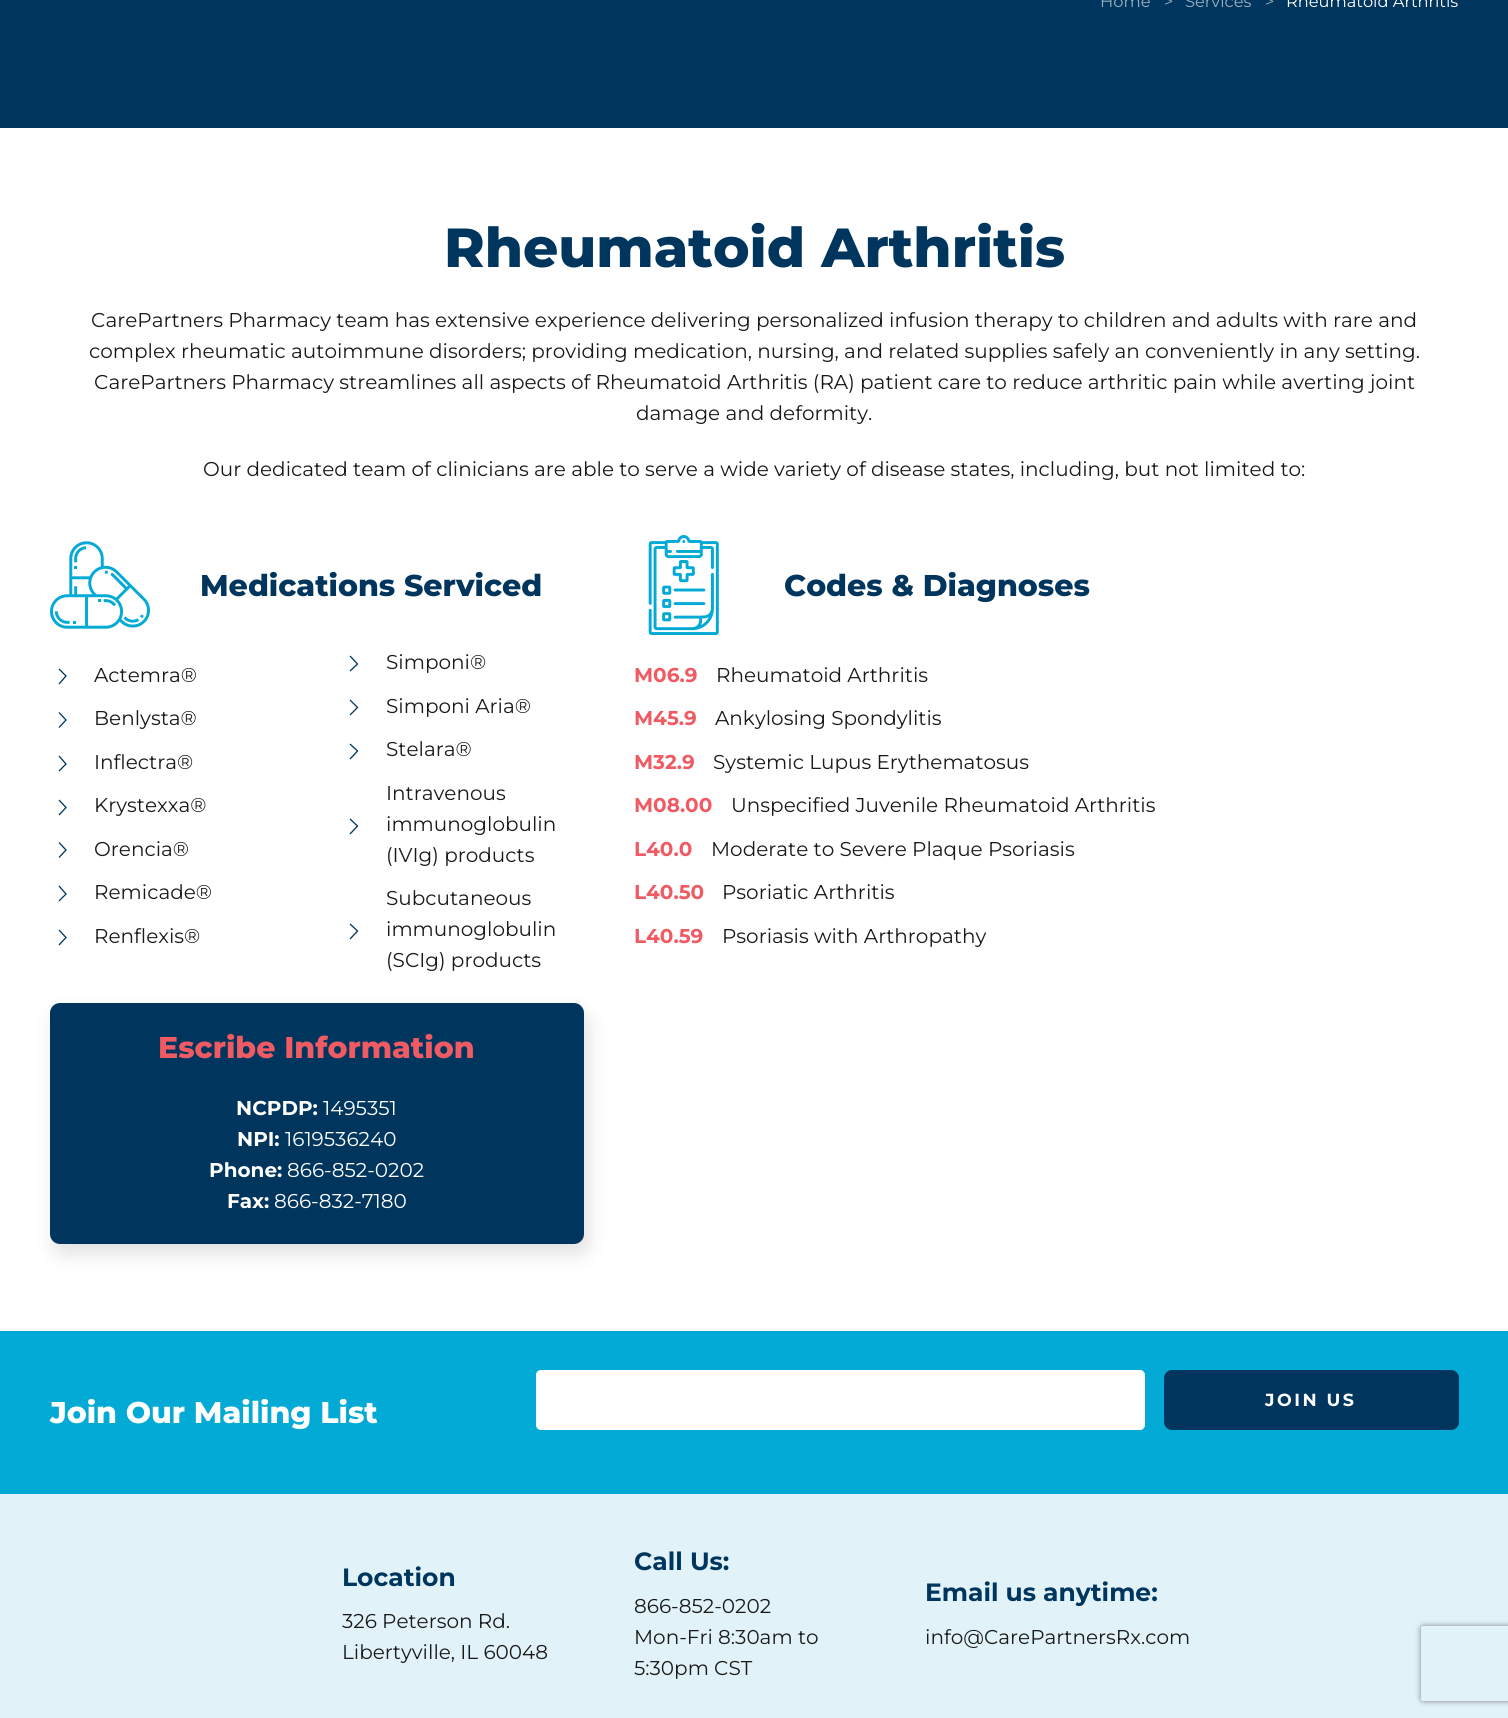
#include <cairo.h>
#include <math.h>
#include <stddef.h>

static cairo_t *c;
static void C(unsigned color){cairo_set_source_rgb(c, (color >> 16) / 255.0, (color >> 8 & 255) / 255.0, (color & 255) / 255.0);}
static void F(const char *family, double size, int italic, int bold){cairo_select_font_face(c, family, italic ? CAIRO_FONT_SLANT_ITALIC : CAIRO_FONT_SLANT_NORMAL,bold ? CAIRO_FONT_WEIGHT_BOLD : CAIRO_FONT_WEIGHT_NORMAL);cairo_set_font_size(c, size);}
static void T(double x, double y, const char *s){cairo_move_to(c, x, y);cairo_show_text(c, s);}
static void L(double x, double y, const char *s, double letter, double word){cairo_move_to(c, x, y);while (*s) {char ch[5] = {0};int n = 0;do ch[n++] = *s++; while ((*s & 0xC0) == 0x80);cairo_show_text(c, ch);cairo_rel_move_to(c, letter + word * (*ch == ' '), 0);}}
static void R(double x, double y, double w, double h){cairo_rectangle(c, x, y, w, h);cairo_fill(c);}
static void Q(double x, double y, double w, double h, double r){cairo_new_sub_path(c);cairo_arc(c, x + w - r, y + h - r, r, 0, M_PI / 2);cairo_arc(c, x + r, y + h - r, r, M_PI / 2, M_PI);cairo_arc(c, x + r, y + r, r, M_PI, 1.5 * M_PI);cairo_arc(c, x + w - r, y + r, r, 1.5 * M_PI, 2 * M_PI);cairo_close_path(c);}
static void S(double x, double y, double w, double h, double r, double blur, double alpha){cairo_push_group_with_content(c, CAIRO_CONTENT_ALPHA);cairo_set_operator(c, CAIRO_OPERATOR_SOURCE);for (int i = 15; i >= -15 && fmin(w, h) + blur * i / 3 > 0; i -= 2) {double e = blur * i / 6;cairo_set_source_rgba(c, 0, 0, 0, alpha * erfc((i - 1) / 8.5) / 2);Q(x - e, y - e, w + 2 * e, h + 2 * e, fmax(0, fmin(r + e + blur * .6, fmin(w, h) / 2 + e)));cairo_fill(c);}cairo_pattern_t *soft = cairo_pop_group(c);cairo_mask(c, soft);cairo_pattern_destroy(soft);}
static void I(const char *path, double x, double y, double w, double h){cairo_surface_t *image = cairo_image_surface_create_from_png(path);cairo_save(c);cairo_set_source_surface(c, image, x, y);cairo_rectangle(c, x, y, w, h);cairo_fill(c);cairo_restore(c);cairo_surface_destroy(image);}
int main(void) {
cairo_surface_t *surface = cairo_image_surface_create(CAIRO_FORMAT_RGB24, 1508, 1718);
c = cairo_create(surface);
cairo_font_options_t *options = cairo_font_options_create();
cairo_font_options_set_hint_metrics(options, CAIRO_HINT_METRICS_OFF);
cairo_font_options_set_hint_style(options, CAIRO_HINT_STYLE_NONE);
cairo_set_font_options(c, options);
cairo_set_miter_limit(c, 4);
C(0xffffff);
cairo_paint(c);
C(0x00365e);
R(0,0,1508,128);
F("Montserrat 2 Thin",16.25,0,0);
C(0x99afbf);
T(1100,7,"Home");
T(1164,7,">");
T(1185,7,"Services");
T(1265,7,">");
C(0xffffff);
T(1286,7,"Rheumatoid Arthritis");
F("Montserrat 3 Thin",55,0,0);
C(0x00365e);
T(444,267,"Rheumatoid Arthritis");
F("Montserrat 2 Thin",20,0,0);
C(0x1a1a1a);
T(91,327,"CarePartners Pharmacy team has extensive experience delivering personalized infusion therapy to children and adults with rare and");
T(89,358,"complex rheumatic autoimmune disorders; providing medication, nursing, and related supplies safely an conveniently in any setting.");
T(94,389,"CarePartners Pharmacy streamlines all aspects of Rheumatoid Arthritis (RA) patient care to reduce arthritic pain while averting joint");
T(636,420,"damage and deformity.");
T(203,476,"Our dedicated team of clinicians are able to serve a wide variety of disease states, including, but not limited to:");
I("1.png",50,541,100,88);
F("Montserrat 3 Thin",30,0,0);
C(0x00365e);
T(200,596,"Medications Serviced");
cairo_new_path(c);
cairo_move_to(c,350,656);
cairo_line_to(c,357.5,664);
cairo_line_to(c,350,671);
cairo_set_line_width(c,1.3);
cairo_stroke(c);
F("Montserrat 2 Thin",20,0,0);
C(0x1a1a1a);
T(386,669,"Simponi®");
cairo_new_path(c);
cairo_move_to(c,59,669);
cairo_line_to(c,66,676);
cairo_line_to(c,59,684);
C(0x00365e);
cairo_stroke(c);
C(0x1a1a1a);
T(94,682,"Actemra®");
cairo_new_path(c);
cairo_move_to(c,350,700);
cairo_line_to(c,357.5,707.5);
cairo_line_to(c,350,715);
C(0x00365e);
cairo_stroke(c);
C(0x1a1a1a);
T(386,713,"Simponi Aria®");
cairo_new_path(c);
cairo_move_to(c,59,712.5);
cairo_line_to(c,66,720);
cairo_line_to(c,59,727.5);
C(0x00365e);
cairo_stroke(c);
C(0x1a1a1a);
T(94,725,"Benlysta®");
cairo_new_path(c);
cairo_move_to(c,350,744);
cairo_line_to(c,357.5,751);
cairo_line_to(c,350,759);
C(0x00365e);
cairo_stroke(c);
C(0x1a1a1a);
T(386,756,"Stelara®");
cairo_new_path(c);
cairo_move_to(c,59,756);
cairo_line_to(c,66,764);
cairo_line_to(c,59,771);
C(0x00365e);
cairo_stroke(c);
C(0x1a1a1a);
T(94,769,"Inflectra®");
cairo_new_path(c);
cairo_move_to(c,59,800);
cairo_line_to(c,66,807.5);
cairo_line_to(c,59,815);
C(0x00365e);
cairo_stroke(c);
C(0x1a1a1a);
T(94,812,"Krystexxa®");
cairo_new_path(c);
cairo_move_to(c,350,819);
cairo_line_to(c,357.5,826);
cairo_line_to(c,350,834);
C(0x00365e);
cairo_stroke(c);
C(0x1a1a1a);
T(386,800,"Intravenous");
T(386,831,"immunoglobulin");
T(386,862,"(IVIg) products");
cairo_new_path(c);
cairo_move_to(c,59,842.5);
cairo_line_to(c,66,850);
cairo_line_to(c,59,857.5);
C(0x00365e);
cairo_stroke(c);
C(0x1a1a1a);
T(94,856,"Orencia®");
cairo_new_path(c);
cairo_move_to(c,59,886);
cairo_line_to(c,66,894);
cairo_line_to(c,59,901);
C(0x00365e);
cairo_stroke(c);
C(0x1a1a1a);
T(94,899,"Remicade®");
cairo_new_path(c);
cairo_move_to(c,350,924);
cairo_line_to(c,357.5,931);
cairo_line_to(c,350,939);
C(0x00365e);
cairo_stroke(c);
C(0x1a1a1a);
T(386,905,"Subcutaneous");
T(386,936,"immunoglobulin");
T(386,967,"(SCIg) products");
cairo_new_path(c);
cairo_move_to(c,59,930);
cairo_line_to(c,66,937.5);
cairo_line_to(c,59,945);
C(0x00365e);
cairo_stroke(c);
C(0x1a1a1a);
T(94,943,"Renflexis®");
C(0x000000);
S(54,1013,534,241,10,10,.12);
C(0x00365e);
Q(50,1003,534,241,10);
cairo_fill(c);
F("Montserrat 3 Thin",30,0,0);
C(0xf05a62);
T(158,1058,"Escribe Information");
F("Montserrat Thin",20,0,0);
C(0xffffff);
T(236,1115,"NCPDP:");
F("Montserrat 2 Thin",20,0,0);
T(323,1115,"1495351");
F("Montserrat Thin",20,0,0);
T(237,1146,"NPI:");
F("Montserrat 2 Thin",20,0,0);
T(285,1146,"1619536240");
F("Montserrat Thin",20,0,0);
T(209,1177,"Phone:");
F("Montserrat 2 Thin",20,0,0);
T(287,1177,"866-852-0202");
F("Montserrat Thin",20,0,0);
T(227,1208,"Fax:");
F("Montserrat 2 Thin",20,0,0);
T(274,1208,"866-832-7180");
I("2.png",648,535,71,100);
F("Montserrat 3 Thin",30,0,0);
C(0x00365e);
T(784,596,"Codes & Diagnoses");
F("Montserrat Thin",20,0,0);
C(0xf05a62);
T(634,682,"M06.9");
F("Montserrat 2 Thin",20,0,0);
C(0x1a1a1a);
T(716,682,"Rheumatoid Arthritis");
F("Montserrat Thin",20,0,0);
C(0xf05a62);
T(634,725,"M45.9");
F("Montserrat 2 Thin",20,0,0);
C(0x1a1a1a);
T(715,725,"Ankylosing Spondylitis");
F("Montserrat Thin",20,0,0);
C(0xf05a62);
T(634,769,"M32.9");
F("Montserrat 2 Thin",20,0,0);
C(0x1a1a1a);
T(713,769,"Systemic Lupus Erythematosus");
F("Montserrat Thin",20,0,0);
C(0xf05a62);
T(634,812,"M08.00");
F("Montserrat 2 Thin",20,0,0);
C(0x1a1a1a);
T(731,812,"Unspecified Juvenile Rheumatoid Arthritis");
F("Montserrat Thin",20,0,0);
C(0xf05a62);
T(634,856,"L40.0");
F("Montserrat 2 Thin",20,0,0);
C(0x1a1a1a);
T(711,856,"Moderate to Severe Plaque Psoriasis");
F("Montserrat Thin",20,0,0);
C(0xf05a62);
T(634,899,"L40.50");
F("Montserrat 2 Thin",20,0,0);
C(0x1a1a1a);
T(722,899,"Psoriatic Arthritis");
F("Montserrat Thin",20,0,0);
C(0xf05a62);
T(634,943,"L40.59");
F("Montserrat 2 Thin",20,0,0);
C(0x1a1a1a);
T(722,943,"Psoriasis with Arthropathy");
C(0x02aad5);
R(0,1332,1508,162);
C(0x02a2ca);
R(0,1331,1508,1);
F("Montserrat 3 Thin",30,0,0);
C(0xffffff);
T(50,1423,"Join Our Mailing List");
Q(536,1370,609,60,5);
cairo_fill(c);
C(0x00365e);
Q(1164,1370,295,60,8);
cairo_fill(c);
F("Montserrat Thin",17.5,0,0);
C(0xffffff);
L(1265,1406,"JOIN US",2.5,0);
C(0xe1f3f9);
R(0,1494,1508,224);
F("Montserrat Thin",25,0,0);
C(0x00365e);
T(342,1586,"Location");
F("Montserrat 2 Thin",20,0,0);
C(0x1a1a1a);
T(342,1628,"326 Peterson Rd.");
T(342,1659,"Libertyville, IL 60048");
F("Montserrat Thin",25,0,0);
C(0x00365e);
T(634,1570,"Call Us:");
F("Montserrat 2 Thin",20,0,0);
C(0x1a1a1a);
T(634,1613,"866-852-0202");
T(634,1644,"Mon-Fri 8:30am to");
T(634,1675,"5:30pm CST");
F("Montserrat Thin",25,0,0);
C(0x00365e);
T(925,1601,"Email us anytime:");
F("Montserrat 2 Thin",20,0,0);
C(0x1a1a1a);
T(925,1644,"info@CarePartnersRx.com");
cairo_save(c);
cairo_set_fill_rule(c,CAIRO_FILL_RULE_EVEN_ODD);
cairo_new_path(c);
cairo_move_to(c,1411,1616);
cairo_line_to(c,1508,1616);
cairo_line_to(c,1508,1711);
cairo_line_to(c,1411,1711);
cairo_close_path(c);
cairo_move_to(c,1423.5,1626);
cairo_line_to(c,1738.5,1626);
cairo_curve_to(c,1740,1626,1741,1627,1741,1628.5);
cairo_line_to(c,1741,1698.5);
cairo_curve_to(c,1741,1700,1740,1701,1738.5,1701);
cairo_line_to(c,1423.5,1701);
cairo_curve_to(c,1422,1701,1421,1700,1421,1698.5);
cairo_line_to(c,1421,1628.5);
cairo_curve_to(c,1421,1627,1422,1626,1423.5,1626);
cairo_close_path(c);
cairo_clip(c);
C(0x808080);
S(1421,1626,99,75,2.5,3,1);
cairo_restore(c);
cairo_surface_write_to_png(surface, "o.png");
cairo_font_options_destroy(options);
cairo_destroy(c);
cairo_surface_destroy(surface);
return 0;
}
